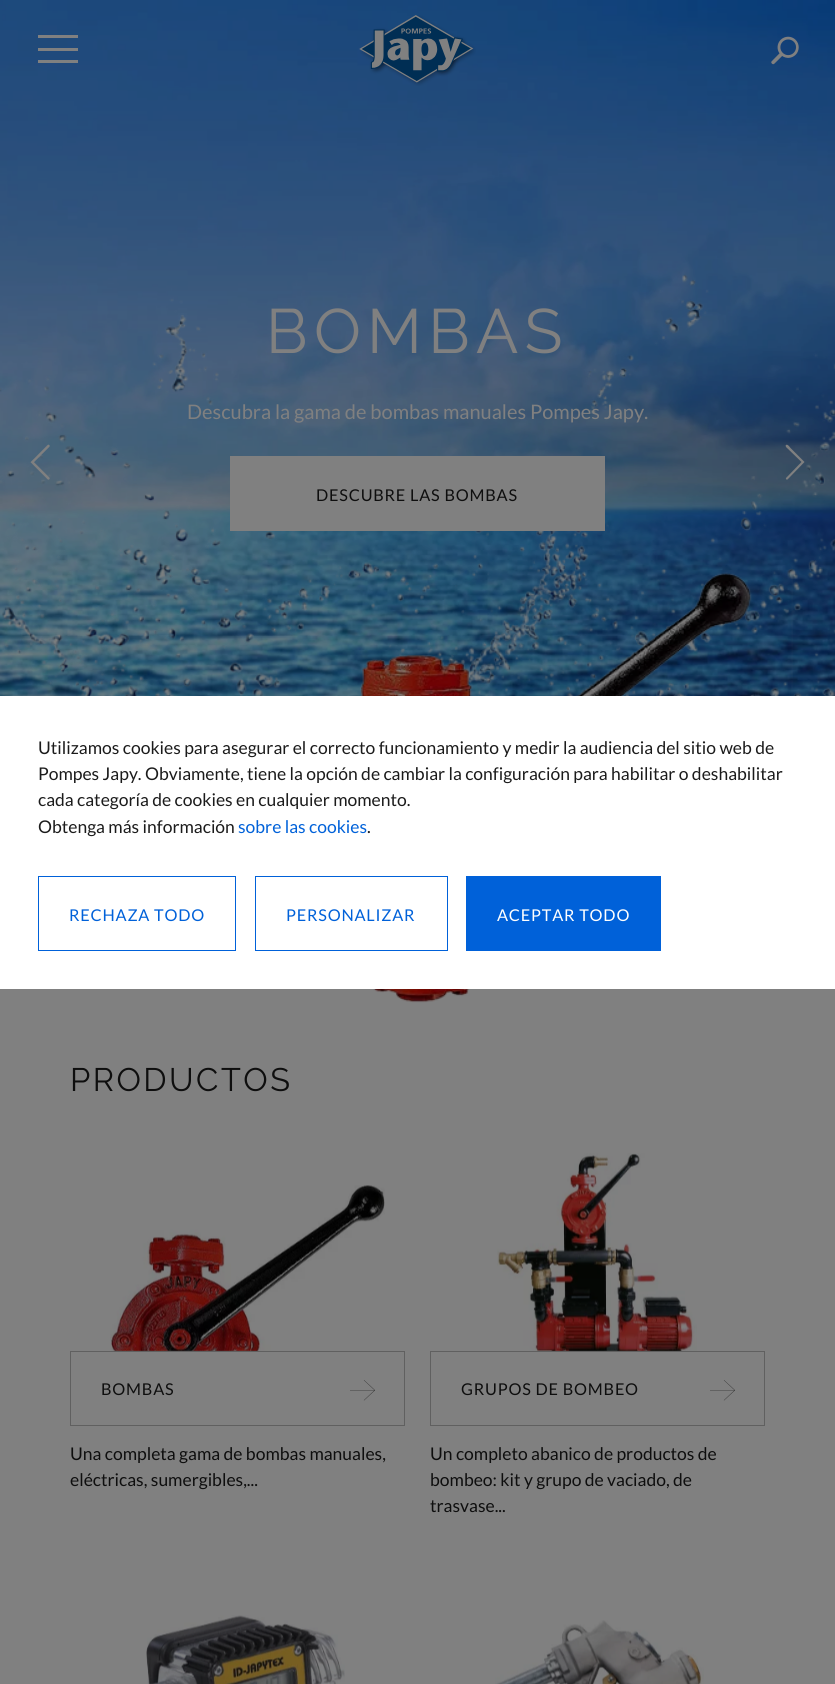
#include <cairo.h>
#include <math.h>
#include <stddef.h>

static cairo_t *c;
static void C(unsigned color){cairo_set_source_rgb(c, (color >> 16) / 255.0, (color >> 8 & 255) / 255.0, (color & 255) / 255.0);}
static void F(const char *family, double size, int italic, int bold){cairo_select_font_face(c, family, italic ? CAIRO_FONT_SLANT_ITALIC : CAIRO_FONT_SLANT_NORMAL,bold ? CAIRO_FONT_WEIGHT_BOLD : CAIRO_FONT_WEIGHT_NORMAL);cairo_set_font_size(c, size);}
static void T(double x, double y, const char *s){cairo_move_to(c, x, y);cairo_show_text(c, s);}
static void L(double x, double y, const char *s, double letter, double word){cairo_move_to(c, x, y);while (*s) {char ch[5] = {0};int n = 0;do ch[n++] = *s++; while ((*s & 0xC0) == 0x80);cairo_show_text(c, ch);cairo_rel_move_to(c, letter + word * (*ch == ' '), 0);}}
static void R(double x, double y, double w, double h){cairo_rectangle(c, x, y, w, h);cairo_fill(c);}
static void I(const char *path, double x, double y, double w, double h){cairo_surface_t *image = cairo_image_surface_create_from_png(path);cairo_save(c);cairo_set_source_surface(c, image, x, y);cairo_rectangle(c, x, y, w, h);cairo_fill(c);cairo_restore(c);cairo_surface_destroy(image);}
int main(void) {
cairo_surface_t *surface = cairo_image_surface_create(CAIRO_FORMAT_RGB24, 835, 1684);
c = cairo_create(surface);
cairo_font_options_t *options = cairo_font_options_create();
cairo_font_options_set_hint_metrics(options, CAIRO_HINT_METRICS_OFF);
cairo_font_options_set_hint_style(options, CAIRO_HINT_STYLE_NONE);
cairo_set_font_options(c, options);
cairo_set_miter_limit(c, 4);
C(0x808080);
cairo_paint(c);
I("4.png",0,0,835,696);
C(0x808080);
R(38,35,40,3);
R(38,48,40,3);
R(38,60,40,3);
I("1.png",359,15,117,71);
I("2.png",771,36,28,29);
I("5.png",0,274,835,422);
I("3.png",30,444,20,36);
F("Raleway",62.5,0,0);
L(266,353,"BOMBAS",6.25,0);
F("Lato",20,0,0);
T(187,419,"Descubra la gama de bombas manuales Pompes Japy.");
R(230,456,375,75);
F("Lato",16.25,0,0);
C(0x0e0e0e);
L(316,501,"DESCUBRE LAS BOMBAS",.8,0);
I("6.png",360,566,433,437);
C(0x808080);
cairo_new_path(c);
cairo_move_to(c,804.5,462);
cairo_line_to(c,790.5,448);
cairo_curve_to(c,790.5,448,787.5,443.5,786,445);
cairo_curve_to(c,785.5,445.5,785.5,446,786,447);
cairo_line_to(c,801.5,462);
cairo_line_to(c,786,478);
cairo_curve_to(c,785.5,479,786.5,480,787.5,479.5);
cairo_close_path(c);
cairo_fill(c);
F("Raleway",32.5,0,0);
C(0x0e0e0e);
L(70,1091,"PRODUCTOS",2.5,0);
I("7.png",110,1185,275,166);
cairo_rectangle(c,70.5,1351.5,334,74);
C(0x606060);
cairo_set_line_width(c,1);
cairo_stroke(c);
F("Lato",16.25,0,0);
C(0x0e0e0e);
L(101,1395,"BOMBAS",.8,0);
I("8.png",350,1380,25,21);
F("Lato",17.5,0,0);
T(70,1460,"Una completa gama de bombas manuales,");
T(70,1486,"eléctricas, sumergibles,...");
I("9.png",497,1153,200,198);
cairo_rectangle(c,430.5,1351.5,334,74);
C(0x606060);
cairo_stroke(c);
F("Lato",16.25,0,0);
C(0x0e0e0e);
L(461,1395,"GRUPOS DE BOMBEO",.8,0);
I("8.png",710,1380,25,21);
F("Lato",17.5,0,0);
T(430,1460,"Un completo abanico de productos de");
T(430,1486,"bombeo: kit y grupo de vaciado, de");
T(430,1512,"trasvase...");
I("10.png",146,1615,199,69);
I("11.png",495,1620,209,64);
C(0xffffff);
R(0,696,835,293);
C(0x1b1b1b);
T(38,754,"Utilizamos cookies para asegurar el correcto funcionamiento y medir la audiencia del sitio web de");
T(38,780,"Pompes Japy. Obviamente, tiene la opción de cambiar la configuración para habilitar o deshabilitar");
T(38,806,"cada categoría de cookies en cualquier momento.");
T(38,833,"Obtenga más información");
C(0x0061d9);
T(238,833,"sobre las cookies");
C(0x1b1b1b);
T(367,833,".");
cairo_rectangle(c,38.5,876.5,197,74);
C(0x0061d9);
cairo_stroke(c);
F("Lato",16.25,0,0);
L(69,921,"RECHAZA TODO",.8,0);
cairo_rectangle(c,255.5,876.5,192,74);
cairo_stroke(c);
L(286,921,"PERSONALIZAR",.8,0);
R(466,876,195,75);
C(0xffffff);
L(497,921,"ACEPTAR TODO",.8,0);
cairo_surface_write_to_png(surface, "o.png");
cairo_font_options_destroy(options);
cairo_destroy(c);
cairo_surface_destroy(surface);
return 0;
}
